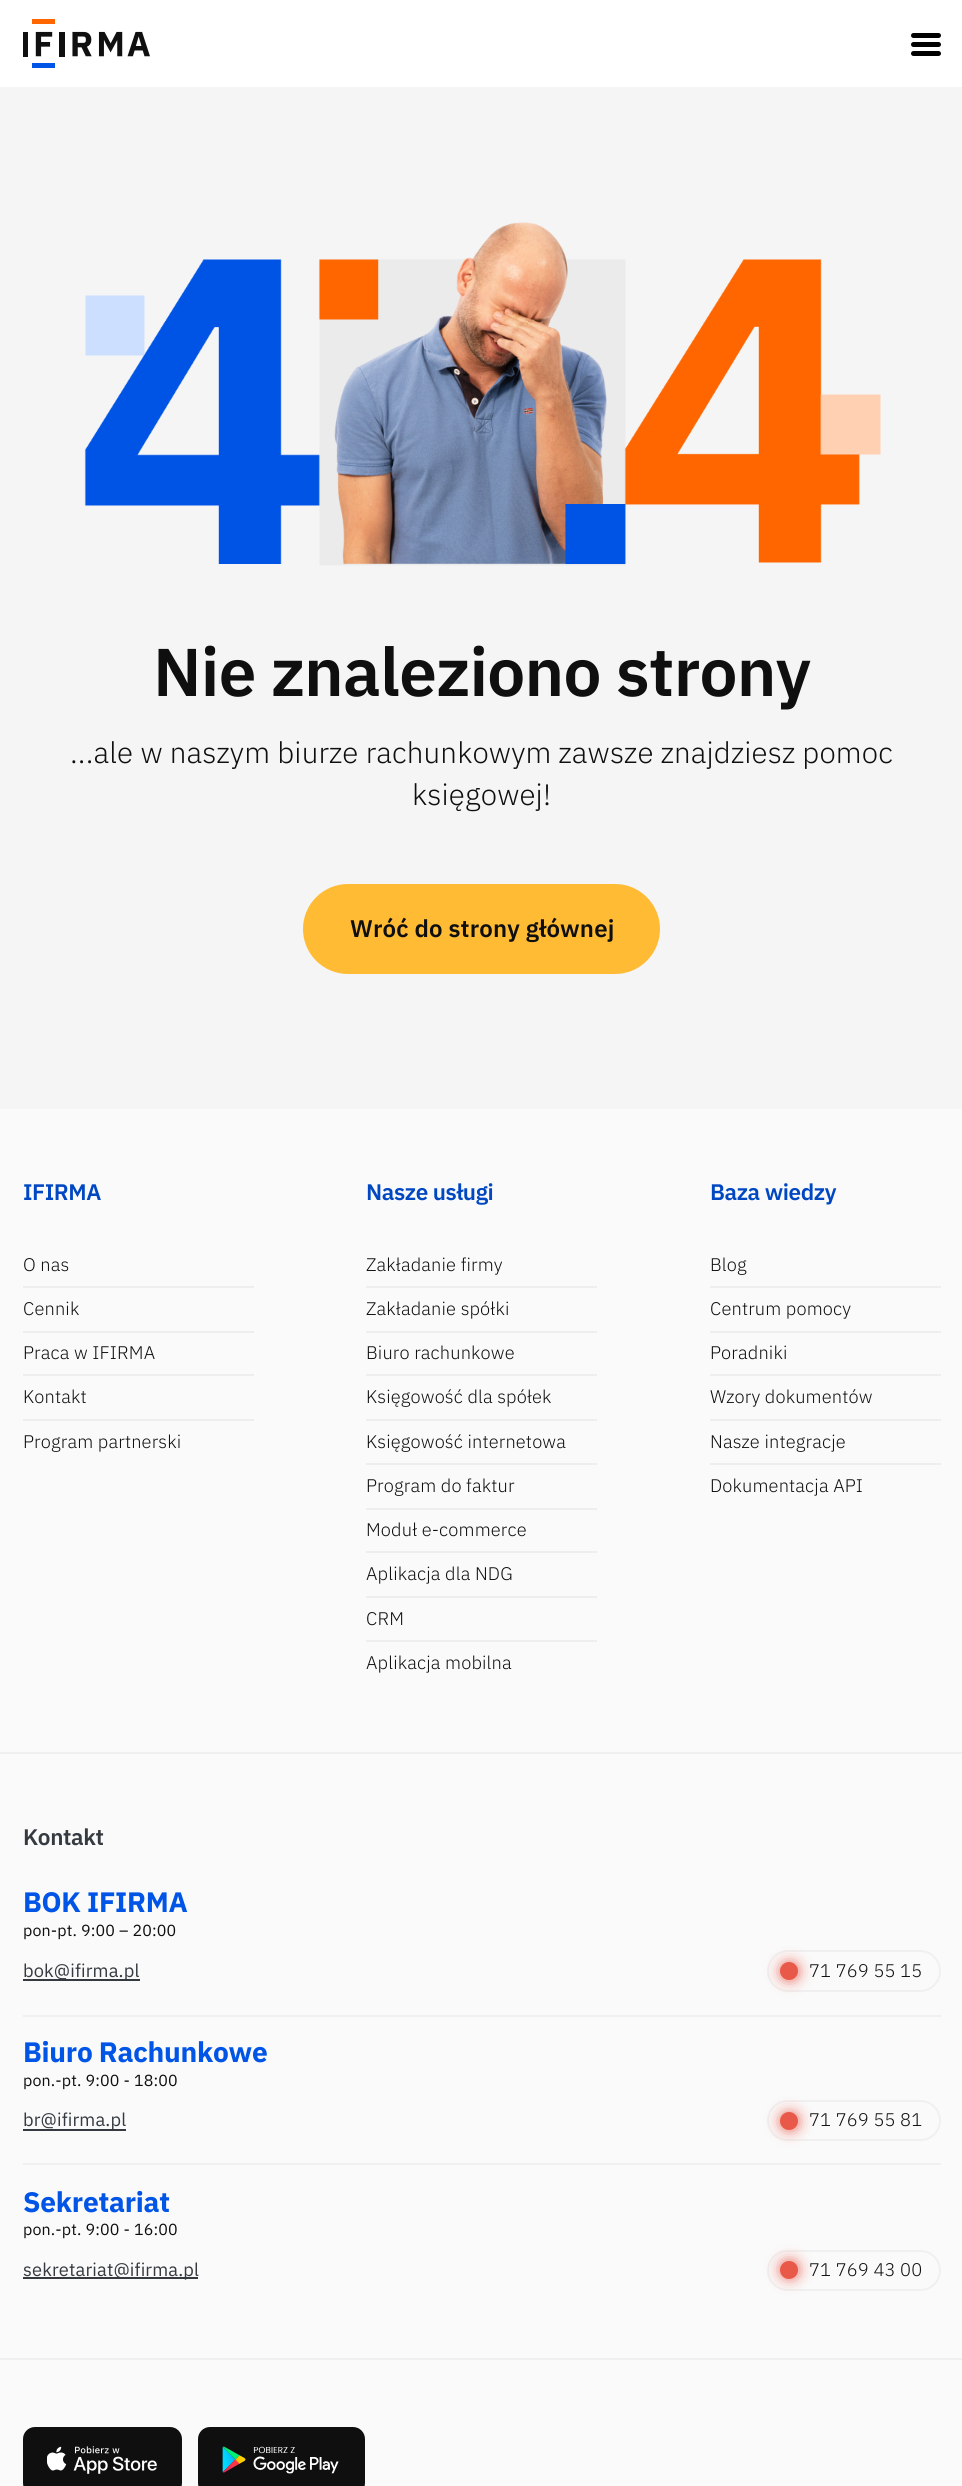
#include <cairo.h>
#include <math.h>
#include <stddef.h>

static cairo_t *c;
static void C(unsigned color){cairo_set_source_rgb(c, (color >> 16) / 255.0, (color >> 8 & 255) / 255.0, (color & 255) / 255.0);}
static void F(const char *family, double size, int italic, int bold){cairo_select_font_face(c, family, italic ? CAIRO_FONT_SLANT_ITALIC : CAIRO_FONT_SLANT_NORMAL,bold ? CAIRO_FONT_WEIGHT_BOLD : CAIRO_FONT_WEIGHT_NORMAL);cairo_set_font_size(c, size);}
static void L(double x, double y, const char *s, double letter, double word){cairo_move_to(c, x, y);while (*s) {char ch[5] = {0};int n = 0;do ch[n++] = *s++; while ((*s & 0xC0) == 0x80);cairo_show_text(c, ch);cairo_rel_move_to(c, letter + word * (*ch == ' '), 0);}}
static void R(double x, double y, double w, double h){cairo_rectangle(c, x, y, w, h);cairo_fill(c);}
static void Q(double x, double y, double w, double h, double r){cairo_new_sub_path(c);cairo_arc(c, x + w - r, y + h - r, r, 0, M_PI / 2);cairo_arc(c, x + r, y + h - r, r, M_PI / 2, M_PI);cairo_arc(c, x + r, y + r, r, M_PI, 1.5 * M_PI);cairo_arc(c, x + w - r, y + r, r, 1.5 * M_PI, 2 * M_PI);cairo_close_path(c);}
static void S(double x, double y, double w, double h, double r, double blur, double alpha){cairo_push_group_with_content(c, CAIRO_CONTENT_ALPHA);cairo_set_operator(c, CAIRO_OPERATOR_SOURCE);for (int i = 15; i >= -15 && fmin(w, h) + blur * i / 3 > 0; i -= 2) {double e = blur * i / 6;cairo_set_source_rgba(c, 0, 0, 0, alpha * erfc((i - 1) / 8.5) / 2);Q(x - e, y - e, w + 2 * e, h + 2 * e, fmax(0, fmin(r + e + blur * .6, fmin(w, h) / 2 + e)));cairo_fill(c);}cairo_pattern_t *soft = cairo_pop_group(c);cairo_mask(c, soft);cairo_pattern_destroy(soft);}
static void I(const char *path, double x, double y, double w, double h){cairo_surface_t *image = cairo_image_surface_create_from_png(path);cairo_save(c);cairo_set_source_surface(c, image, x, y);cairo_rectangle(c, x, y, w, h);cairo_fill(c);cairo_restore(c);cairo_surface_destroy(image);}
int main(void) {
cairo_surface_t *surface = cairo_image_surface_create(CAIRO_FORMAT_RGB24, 962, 2486);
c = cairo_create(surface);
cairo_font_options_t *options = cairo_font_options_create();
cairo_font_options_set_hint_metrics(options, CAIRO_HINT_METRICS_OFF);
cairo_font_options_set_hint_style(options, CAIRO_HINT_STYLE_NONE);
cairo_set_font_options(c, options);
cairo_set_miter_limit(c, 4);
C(0xffffff);
cairo_paint(c);
I("1.png",23,19,127,49);
C(0x000000);
Q(911,42,30,5,2.5);
cairo_fill(c);
Q(911,33,30,5,2.5);
cairo_fill(c);
Q(911,51,30,5,2.5);
cairo_fill(c);
C(0xf5f5f5);
R(0,87,962,1022);
I("2.png",84,222,797,344);
F("IBM Plex Sans SemiBold",67.5,0,0);
C(0x0f0f0f);
L(153,696,"Nie znaleziono strony",-.7,0);
F("IBM Plex Sans Light",29.5,0,0);
L(70,763,"...ale w naszym biurze rachunkowym zawsze znajdziesz pomoc",.15,0);
L(412,805,"księgowej!",.15,0);
C(0xffbb33);
Q(303,884,357,90,45);
cairo_fill(c);
F("IBM Plex Sans SemiBold",24,0,0);
C(0x0f0f0f);
L(350,937,"Wróć do strony głównej",.15,0);
C(0xfafafa);
R(0,1109,962,1377);
F("IBM Plex Sans SemiBold",22.5,0,0);
C(0x0047c2);
L(23,1200,"IFIRMA",-.4,0);
C(0xeeeeee);
R(23,1286,231,2);
F("IBM Plex Sans Light",18.25,0,0);
C(0x0f0f0f);
L(23,1271,"O nas",.15,0);
C(0xeeeeee);
R(23,1331,231,2);
C(0x0f0f0f);
L(23,1315,"Cennik",.15,0);
C(0xeeeeee);
R(23,1374,231,2);
C(0x0f0f0f);
L(23,1359,"Praca w IFIRMA",.15,0);
C(0xeeeeee);
R(23,1419,231,2);
C(0x0f0f0f);
L(23,1403,"Kontakt",.15,0);
L(23,1448,"Program partnerski",.15,0);
F("IBM Plex Sans SemiBold",22.5,0,0);
C(0x0047c2);
L(366,1200,"Nasze usługi",-.4,0);
C(0xeeeeee);
R(366,1286,231,2);
F("IBM Plex Sans Light",18.25,0,0);
C(0x0f0f0f);
L(366,1271,"Zakładanie firmy",.15,0);
C(0xeeeeee);
R(366,1331,231,2);
C(0x0f0f0f);
L(366,1315,"Zakładanie spółki",.15,0);
C(0xeeeeee);
R(366,1374,231,2);
C(0x0f0f0f);
L(366,1359,"Biuro rachunkowe",.15,0);
C(0xeeeeee);
R(366,1419,231,2);
C(0x0f0f0f);
L(366,1403,"Księgowość dla spółek",.15,0);
C(0xeeeeee);
R(366,1463,231,2);
C(0x0f0f0f);
L(366,1448,"Księgowość internetowa",.15,0);
C(0xeeeeee);
R(366,1508,231,2);
C(0x0f0f0f);
L(366,1492,"Program do faktur",.15,0);
C(0xeeeeee);
R(366,1551,231,2);
C(0x0f0f0f);
L(366,1536,"Moduł e-commerce",.15,0);
C(0xeeeeee);
R(366,1596,231,2);
C(0x0f0f0f);
L(366,1580,"Aplikacja dla NDG",.15,0);
C(0xeeeeee);
R(366,1640,231,2);
C(0x0f0f0f);
L(366,1625,"CRM",.15,0);
L(366,1669,"Aplikacja mobilna",.15,0);
F("IBM Plex Sans SemiBold",22.5,0,0);
C(0x0047c2);
L(710,1200,"Baza wiedzy",-.4,0);
C(0xeeeeee);
R(710,1286,231,2);
F("IBM Plex Sans Light",18.25,0,0);
C(0x0f0f0f);
L(710,1271,"Blog",.15,0);
C(0xeeeeee);
R(710,1331,231,2);
C(0x0f0f0f);
L(710,1315,"Centrum pomocy",.15,0);
C(0xeeeeee);
R(710,1374,231,2);
C(0x0f0f0f);
L(710,1359,"Poradniki",.15,0);
C(0xeeeeee);
R(710,1419,231,2);
C(0x0f0f0f);
L(710,1403,"Wzory dokumentów",.15,0);
C(0xeeeeee);
R(710,1463,231,2);
C(0x0f0f0f);
L(710,1448,"Nasze integracje",.15,0);
L(710,1492,"Dokumentacja API",.15,0);
C(0xf0f0f0);
R(0,1752,962,2);
F("IBM Plex Sans SemiBold",22.5,0,0);
C(0x343a40);
L(23,1845,"Kontakt",-.4,0);
F("IBM Plex Sans",28.1,0,1);
C(0x0054e6);
L(23,1912,"BOK IFIRMA",-.25,0);
F("IBM Plex Sans",16,0,0);
C(0x0f0f0f);
L(23,1936,"pon-pt. 9:00 – 20:00",.15,0);
C(0xf0f0f0);
R(23,2015,918,2);
C(0x343a40);
R(23,1979,117,2);
F("IBM Plex Sans",18.25,0,0);
L(23,1977,"bok@ifirma.pl",.15,0);
Q(768,1951,172,40,20);
C(0xf0f0f0);
cairo_stroke(c);
C(0xe95949);
S(782,1964,15,15,7.5,7.5,1);
C(0xe95949);
cairo_arc(c,789,1971,9,0,2 * M_PI);
cairo_fill(c);
F("IBM Plex Sans Light",18.25,0,0);
C(0x0f0f0f);
L(809,1977,"71 769 55 15",.15,0);
F("IBM Plex Sans",28.1,0,1);
C(0x0054e6);
L(23,2062,"Biuro Rachunkowe",-.25,0);
F("IBM Plex Sans",16,0,0);
C(0x0f0f0f);
L(23,2086,"pon.-pt. 9:00 - 18:00",.15,0);
C(0xf0f0f0);
R(23,2163,918,2);
C(0x343a40);
R(23,2129,103,2);
F("IBM Plex Sans",18.25,0,0);
L(23,2126,"br@ifirma.pl",.15,0);
Q(768,2101,172,39,19.5);
C(0xf0f0f0);
cairo_stroke(c);
C(0xe95949);
S(782,2114,15,15,7.5,7.5,1);
C(0xe95949);
cairo_arc(c,789,2121,9,0,2 * M_PI);
cairo_fill(c);
F("IBM Plex Sans Light",18.25,0,0);
C(0x0f0f0f);
L(809,2126,"71 769 55 81",.15,0);
F("IBM Plex Sans",28.1,0,1);
C(0x0054e6);
L(23,2212,"Sekretariat",-.25,0);
F("IBM Plex Sans",16,0,0);
C(0x0f0f0f);
L(23,2235,"pon.-pt. 9:00 - 16:00",.15,0);
C(0x343a40);
R(23,2277,175,2);
F("IBM Plex Sans",18.25,0,0);
L(23,2276,"sekretariat@ifirma.pl",.15,0);
Q(768,2251,172,39,19.5);
C(0xf0f0f0);
cairo_stroke(c);
C(0xe95949);
S(782,2262,15,15,7.5,7.5,1);
C(0xe95949);
cairo_arc(c,789,2270,9,0,2 * M_PI);
cairo_fill(c);
F("IBM Plex Sans Light",18.25,0,0);
C(0x0f0f0f);
L(809,2276,"71 769 43 00",.15,0);
C(0xf0f0f0);
R(0,2358,962,2);
C(0x0f0f0f);
Q(23,2427,159,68,12);
cairo_fill(c);
I("3.png",47,2446,110,28);
Q(198,2427,167,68,12);
cairo_fill(c);
I("4.png",222,2446,117,28);
cairo_surface_write_to_png(surface, "o.png");
cairo_font_options_destroy(options);
cairo_destroy(c);
cairo_surface_destroy(surface);
return 0;
}
